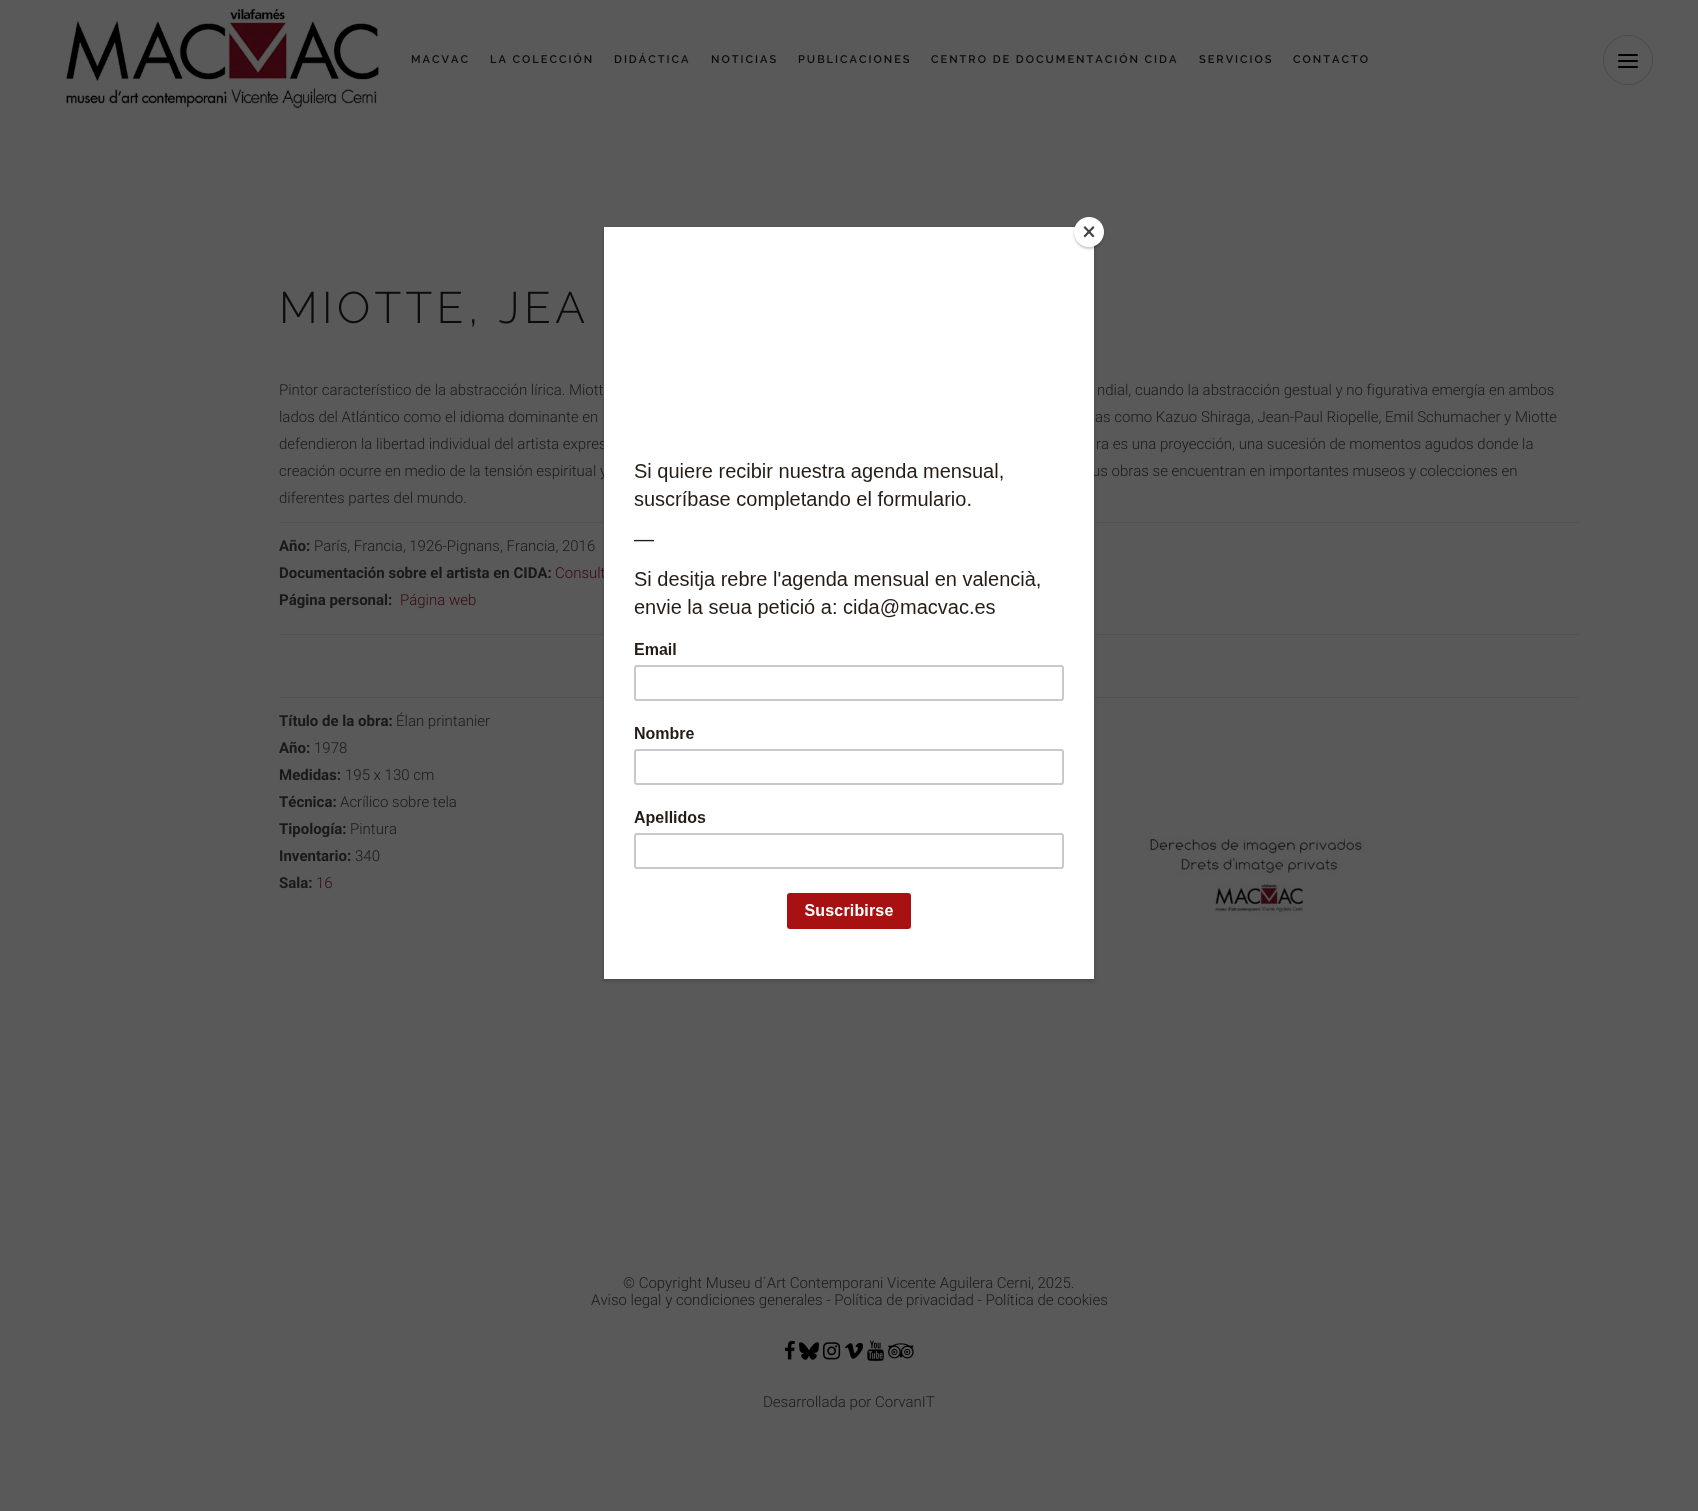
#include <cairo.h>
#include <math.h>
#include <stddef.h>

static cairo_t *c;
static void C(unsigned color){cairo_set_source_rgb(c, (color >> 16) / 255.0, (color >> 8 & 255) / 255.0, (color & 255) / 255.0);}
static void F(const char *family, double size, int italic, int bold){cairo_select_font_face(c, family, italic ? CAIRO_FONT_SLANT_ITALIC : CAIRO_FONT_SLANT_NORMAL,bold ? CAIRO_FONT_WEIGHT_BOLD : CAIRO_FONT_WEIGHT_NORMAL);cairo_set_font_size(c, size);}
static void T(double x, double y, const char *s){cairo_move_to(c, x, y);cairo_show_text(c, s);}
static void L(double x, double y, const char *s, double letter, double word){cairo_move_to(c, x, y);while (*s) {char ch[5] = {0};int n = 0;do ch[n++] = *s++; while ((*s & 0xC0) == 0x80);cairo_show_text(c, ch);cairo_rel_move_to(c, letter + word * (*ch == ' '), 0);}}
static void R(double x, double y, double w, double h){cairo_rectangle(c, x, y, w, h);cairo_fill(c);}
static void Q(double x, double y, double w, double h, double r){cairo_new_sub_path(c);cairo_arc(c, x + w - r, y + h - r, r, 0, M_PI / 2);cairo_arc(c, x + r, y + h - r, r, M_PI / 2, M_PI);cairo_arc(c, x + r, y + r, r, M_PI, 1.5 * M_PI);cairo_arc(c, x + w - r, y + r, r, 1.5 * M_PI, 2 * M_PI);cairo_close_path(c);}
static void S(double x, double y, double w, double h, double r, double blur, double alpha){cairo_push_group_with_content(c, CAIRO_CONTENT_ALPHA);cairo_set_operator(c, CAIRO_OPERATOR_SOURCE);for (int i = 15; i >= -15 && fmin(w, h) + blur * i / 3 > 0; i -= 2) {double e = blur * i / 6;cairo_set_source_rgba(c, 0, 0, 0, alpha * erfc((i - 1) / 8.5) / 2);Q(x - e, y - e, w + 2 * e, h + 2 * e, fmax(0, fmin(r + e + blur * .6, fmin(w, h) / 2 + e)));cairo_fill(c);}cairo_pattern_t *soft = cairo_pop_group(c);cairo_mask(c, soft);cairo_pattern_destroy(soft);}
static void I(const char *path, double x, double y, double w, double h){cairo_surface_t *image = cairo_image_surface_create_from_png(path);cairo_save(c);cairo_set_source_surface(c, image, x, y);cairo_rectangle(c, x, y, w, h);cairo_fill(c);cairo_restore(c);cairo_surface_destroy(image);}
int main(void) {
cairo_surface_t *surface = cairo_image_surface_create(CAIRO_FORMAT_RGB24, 1698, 1511);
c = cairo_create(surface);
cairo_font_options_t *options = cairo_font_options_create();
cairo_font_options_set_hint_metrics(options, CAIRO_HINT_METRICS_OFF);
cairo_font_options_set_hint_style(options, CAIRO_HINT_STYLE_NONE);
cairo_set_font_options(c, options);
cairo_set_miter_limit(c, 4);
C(0x595959);
cairo_paint(c);
I("1.png",66,5,315,104);
F("Raleway SemiBold",11,0,0);
C(0x0c0c0c);
L(411,63,"MACVAC",2,0);
L(490,63,"LA COLECCIÓN",2,0);
L(614,63,"DIDÁCTICA",2,0);
L(711,63,"NOTICIAS",2,0);
L(798,63,"PUBLICACIONES",2,0);
L(931,63,"CENTRO DE DOCUMENTACIÓN CIDA",2,0);
L(1199,63,"SERVICIOS",2,0);
L(1293,63,"CONTACTO",2,0);
cairo_new_path(c);
cairo_arc(c,1628,60,24.5,0,2 * M_PI);
C(0x4a4a4a);
cairo_set_line_width(c,1);
cairo_stroke(c);
I("2.png",1618,54,20,14);
F("Raleway Light",44,0,0);
C(0x0c0c0c);
L(279,323,"MIOTTE, JEA",4.4,0);
F("Roboto Light",15,0,0);
C(0x191919);
T(279,395,"Pintor característico de la abstracción lírica. Miott");
T(1097,395,"ndial, cuando la abstracción gestual y no figurativa emergía en ambos");
T(279,422,"lados del Atlántico como el idioma dominante en");
T(1095,422,"as como Kazuo Shiraga, Jean-Paul Riopelle, Emil Schumacher y Miotte");
T(279,449,"defendieron la libertad individual del artista expres");
T(1096,449,"ra es una proyección, una sucesión de momentos agudos donde la");
T(279,476,"creación ocurre en medio de la tensión espiritual y");
T(1092,476,"us obras se encuentran en importantes museos y colecciones en");
T(279,503,"diferentes partes del mundo.");
C(0x525252);
R(279,522,1300,1);
F("Roboto",15,0,1);
C(0x191919);
T(279,551,"Año:");
F("Roboto Light",15,0,0);
T(314,551,"París, Francia, 1926-Pignans, Francia, 2016");
F("Roboto",15,0,1);
T(279,578,"Documentación sobre el artista en CIDA:");
F("Roboto Light",15,0,0);
C(0x360910);
T(555,578,"Consult");
F("Roboto",15,0,1);
C(0x191919);
T(279,605,"Página personal:");
F("Roboto Light",15,0,0);
C(0x360910);
T(400,605,"Página web");
C(0x525252);
R(279,634,1300,1);
R(279,697,325,1);
F("Roboto",15,0,1);
C(0x191919);
T(279,726,"Título de la obra:");
F("Roboto Light",15,0,0);
T(396,726,"Élan printanier");
F("Roboto",15,0,1);
T(279,753,"Año:");
F("Roboto Light",15,0,0);
T(314,753,"1978");
F("Roboto",15,0,1);
T(279,780,"Medidas:");
F("Roboto Light",15,0,0);
T(345,780,"195 x 130 cm");
F("Roboto",15,0,1);
T(279,807,"Técnica:");
F("Roboto Light",15,0,0);
T(340,807,"Acrílico sobre tela");
F("Roboto",15,0,1);
T(279,834,"Tipología:");
F("Roboto Light",15,0,0);
T(350,834,"Pintura");
F("Roboto",15,0,1);
T(279,861,"Inventario:");
F("Roboto Light",15,0,0);
T(355,861,"340");
F("Roboto",15,0,1);
T(279,888,"Sala:");
F("Roboto Light",15,0,0);
C(0x360910);
T(316,888,"16");
C(0x525252);
R(1094,697,485,1);
I("3.png",1144,836,224,80);
C(0x191919);
T(623,1288,"© Copyright Museu d´Art Contemporani Vicente Aguilera Cerni, 2025.");
T(591,1305,"Aviso legal y condiciones generales - Política de privacidad - Política de cookies");
I("4.png",785,1340,10,20);
I("5.png",799,1342,20,18);
I("6.png",823,1342,18,18);
I("7.png",845,1343,19,16);
I("8.png",867,1340,17,21);
I("9.png",888,1343,26,16);
T(763,1407,"Desarrollada por CorvanIT");
C(0x000000);
S(604,229,490,752,0,2,.2);
I("10.png",604,227,490,752);
S(1074,219,30,30,15,1,.2);
C(0xffffff);
cairo_arc(c,1089,232,15,0,2 * M_PI);
cairo_fill(c);
C(0x414141);
cairo_new_path(c);
cairo_move_to(c,1093,226);
cairo_line_to(c,1094.5,227.5);
cairo_line_to(c,1085,237.5);
cairo_line_to(c,1083.5,236);
cairo_close_path(c);
cairo_fill(c);
cairo_new_path(c);
cairo_move_to(c,1083.5,227.5);
cairo_line_to(c,1085,226);
cairo_line_to(c,1094.5,236);
cairo_line_to(c,1093,237.5);
cairo_close_path(c);
cairo_fill(c);
cairo_surface_write_to_png(surface, "o.png");
cairo_font_options_destroy(options);
cairo_destroy(c);
cairo_surface_destroy(surface);
return 0;
}
